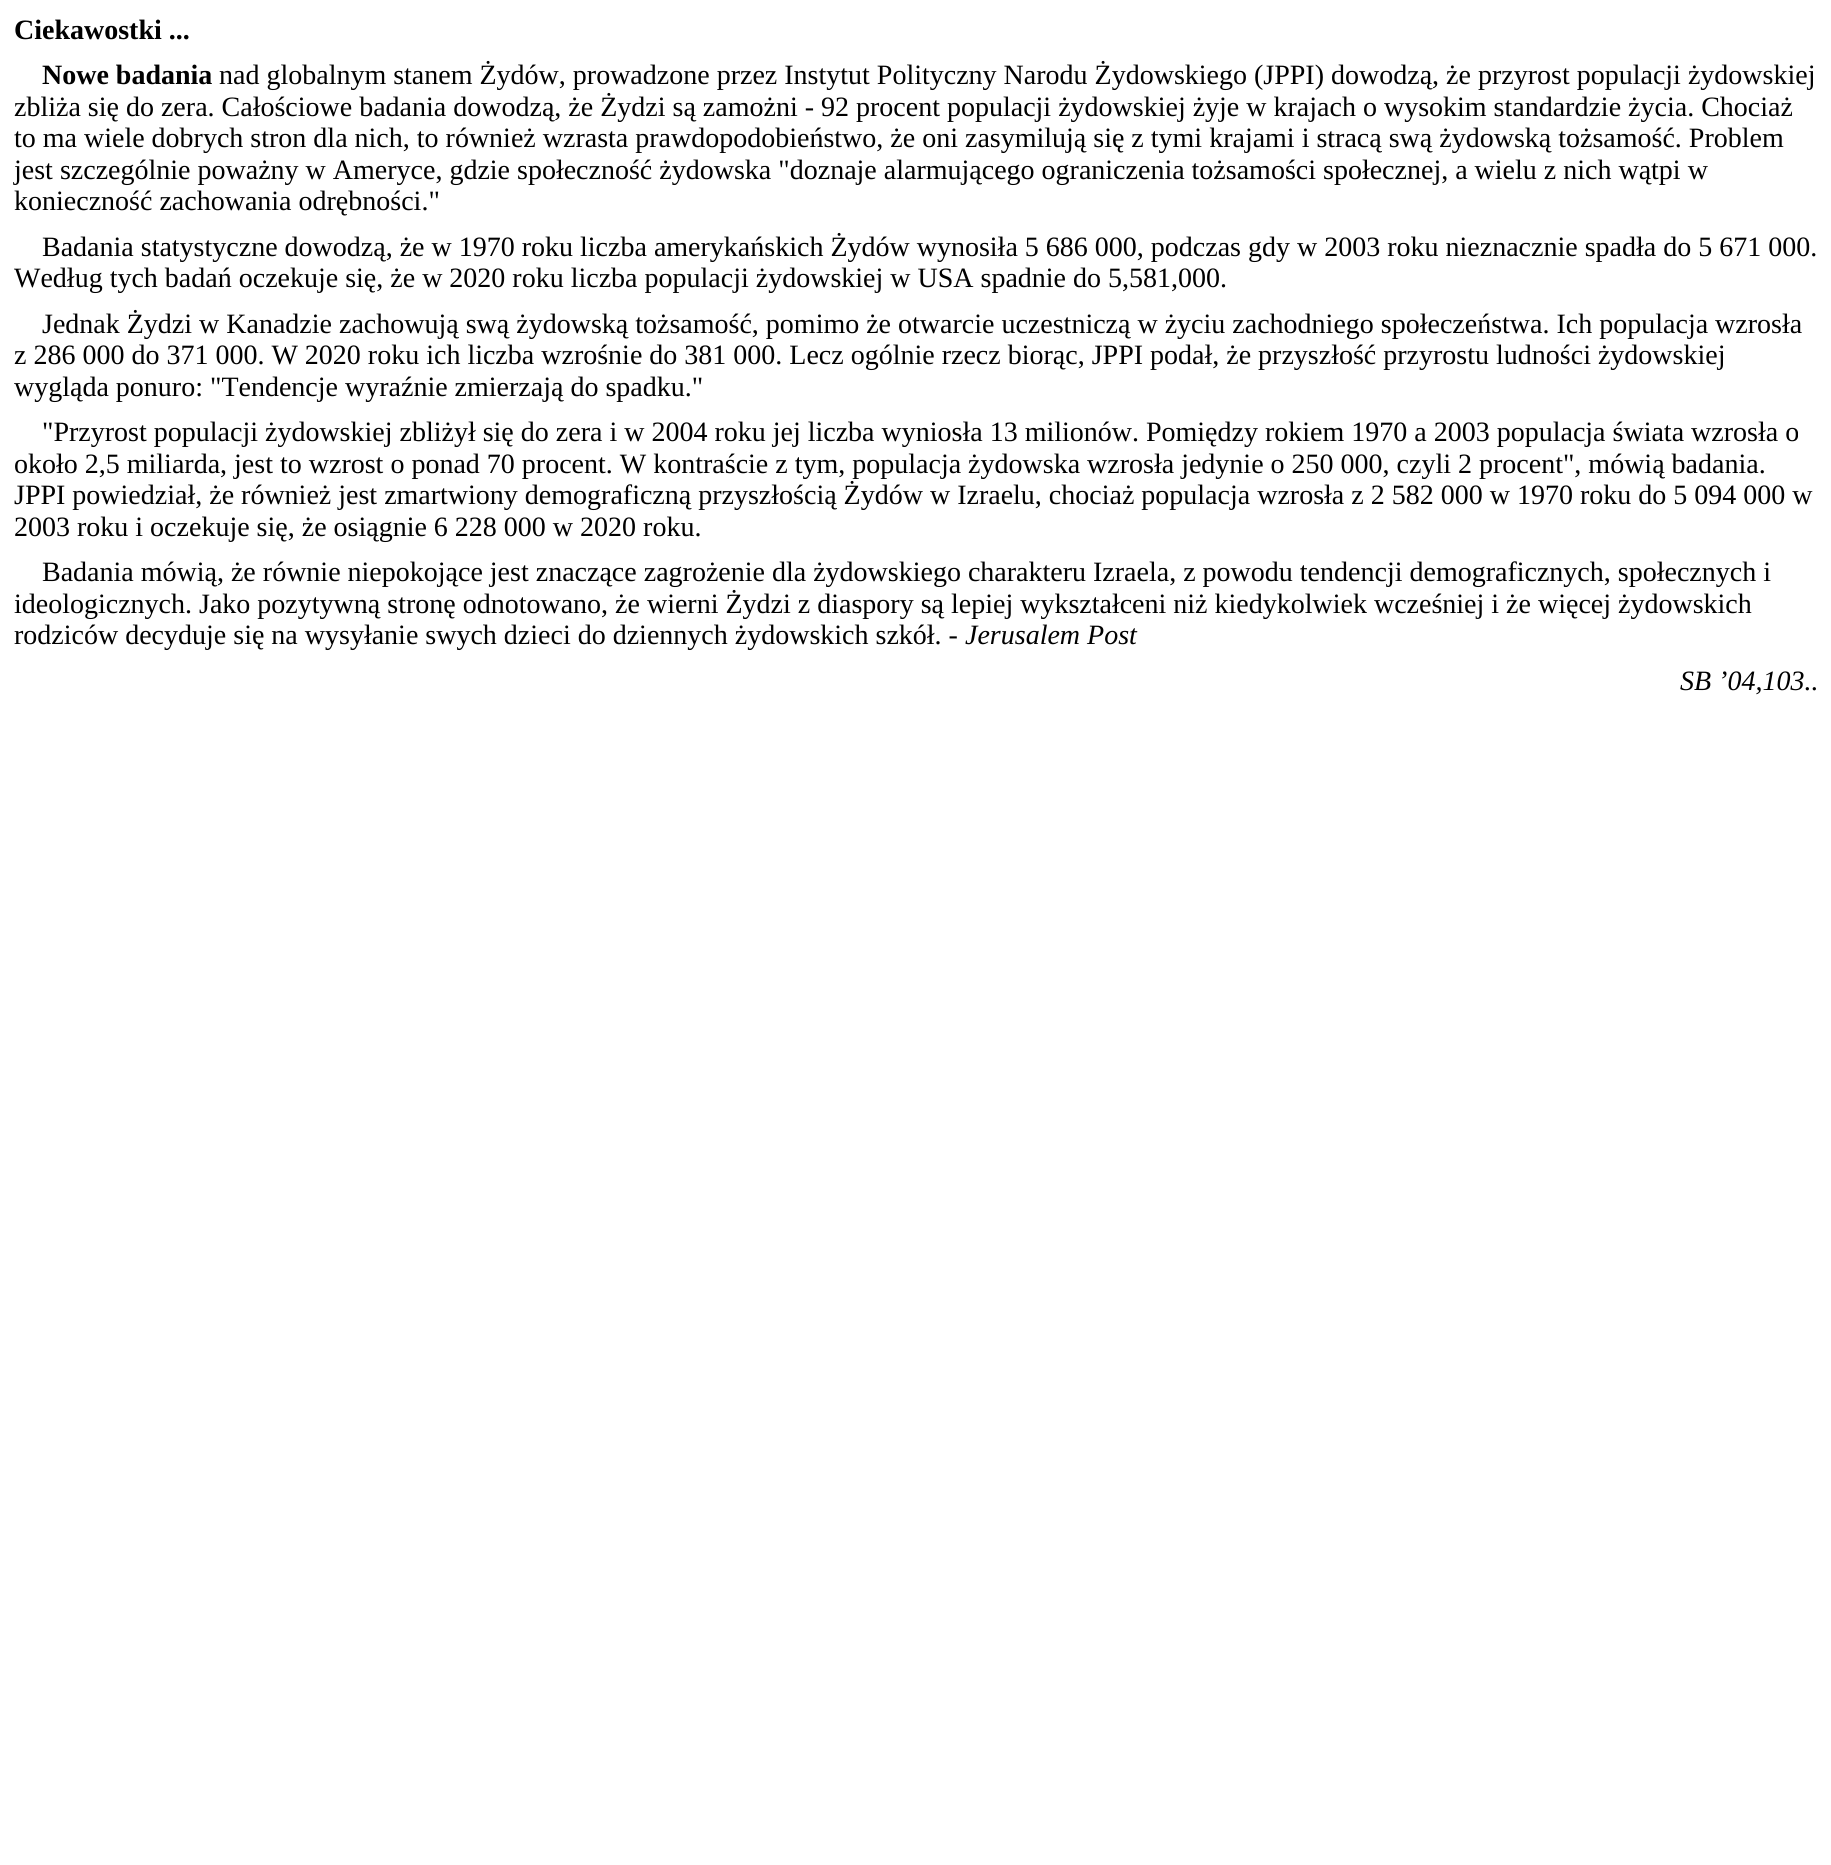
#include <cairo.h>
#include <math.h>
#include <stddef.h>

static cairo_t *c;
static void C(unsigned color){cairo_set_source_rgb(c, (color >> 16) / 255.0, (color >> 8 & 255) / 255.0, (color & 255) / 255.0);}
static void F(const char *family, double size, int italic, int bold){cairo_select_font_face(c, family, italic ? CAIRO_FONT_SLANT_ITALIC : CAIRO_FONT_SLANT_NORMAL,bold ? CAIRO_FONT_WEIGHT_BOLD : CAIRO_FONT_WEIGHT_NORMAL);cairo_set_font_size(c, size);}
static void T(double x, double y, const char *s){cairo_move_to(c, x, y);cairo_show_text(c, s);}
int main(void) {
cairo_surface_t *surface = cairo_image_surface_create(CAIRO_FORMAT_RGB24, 1831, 1865);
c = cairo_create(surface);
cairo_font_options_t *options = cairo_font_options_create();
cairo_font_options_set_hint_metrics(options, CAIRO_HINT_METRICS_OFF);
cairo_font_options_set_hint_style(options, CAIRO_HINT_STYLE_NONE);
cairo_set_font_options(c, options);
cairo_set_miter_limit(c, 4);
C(0xffffff);
cairo_paint(c);
F("Liberation Serif",28,0,1);
C(0x000000);
T(14,39,"Ciekawostki ...");
T(42,84,"Nowe badania");
F("Liberation Serif",28,0,0);
T(219,84,"nad globalnym stanem Żydów, prowadzone przez Instytut Polityczny Narodu Żydowskiego (JPPI) dowodzą, że przyrost populacji żydowskiej");
T(14,116,"zbliża się do zera. Całościowe badania dowodzą, że Żydzi są zamożni - 92 procent populacji żydowskiej żyje w krajach o wysokim standardzie życia. Chociaż");
T(14,147,"to ma wiele dobrych stron dla nich, to również wzrasta prawdopodobieństwo, że oni zasymilują się z tymi krajami i stracą swą żydowską tożsamość. Problem");
T(14,179,"jest szczególnie poważny w Ameryce, gdzie społeczność żydowska \"doznaje alarmującego ograniczenia tożsamości społecznej, a wielu z nich wątpi w");
T(14,210,"konieczność zachowania odrębności.\"");
T(42,256,"Badania statystyczne dowodzą, że w 1970 roku liczba amerykańskich Żydów wynosiła 5 686 000, podczas gdy w 2003 roku nieznacznie spadła do 5 671 000.");
T(14,287,"Według tych badań oczekuje się, że w 2020 roku liczba populacji żydowskiej w USA spadnie do 5,581,000.");
T(42,333,"Jednak Żydzi w Kanadzie zachowują swą żydowską tożsamość, pomimo że otwarcie uczestniczą w życiu zachodniego społeczeństwa. Ich populacja wzrosła");
T(14,364,"z 286 000 do 371 000. W 2020 roku ich liczba wzrośnie do 381 000. Lecz ogólnie rzecz biorąc, JPPI podał, że przyszłość przyrostu ludności żydowskiej");
T(14,396,"wygląda ponuro: \"Tendencje wyraźnie zmierzają do spadku.\"");
T(42,441,"\"Przyrost populacji żydowskiej zbliżył się do zera i w 2004 roku jej liczba wyniosła 13 milionów. Pomiędzy rokiem 1970 a 2003 populacja świata wzrosła o");
T(14,473,"około 2,5 miliarda, jest to wzrost o ponad 70 procent. W kontraście z tym, populacja żydowska wzrosła jedynie o 250 000, czyli 2 procent\", mówią badania.");
T(14,504,"JPPI powiedział, że również jest zmartwiony demograficzną przyszłością Żydów w Izraelu, chociaż populacja wzrosła z 2 582 000 w 1970 roku do 5 094 000 w");
T(14,536,"2003 roku i oczekuje się, że osiągnie 6 228 000 w 2020 roku.");
T(42,581,"Badania mówią, że równie niepokojące jest znaczące zagrożenie dla żydowskiego charakteru Izraela, z powodu tendencji demograficznych, społecznych i");
T(14,613,"ideologicznych. Jako pozytywną stronę odnotowano, że wierni Żydzi z diaspory są lepiej wykształceni niż kiedykolwiek wcześniej i że więcej żydowskich");
T(14,644,"rodziców decyduje się na wysyłanie swych dzieci do dziennych żydowskich szkół. -");
F("Liberation Serif",28,1,0);
T(965,644,"Jerusalem Post");
T(1680,690,"SB ’04,103..");
cairo_surface_write_to_png(surface, "o.png");
cairo_font_options_destroy(options);
cairo_destroy(c);
cairo_surface_destroy(surface);
return 0;
}
